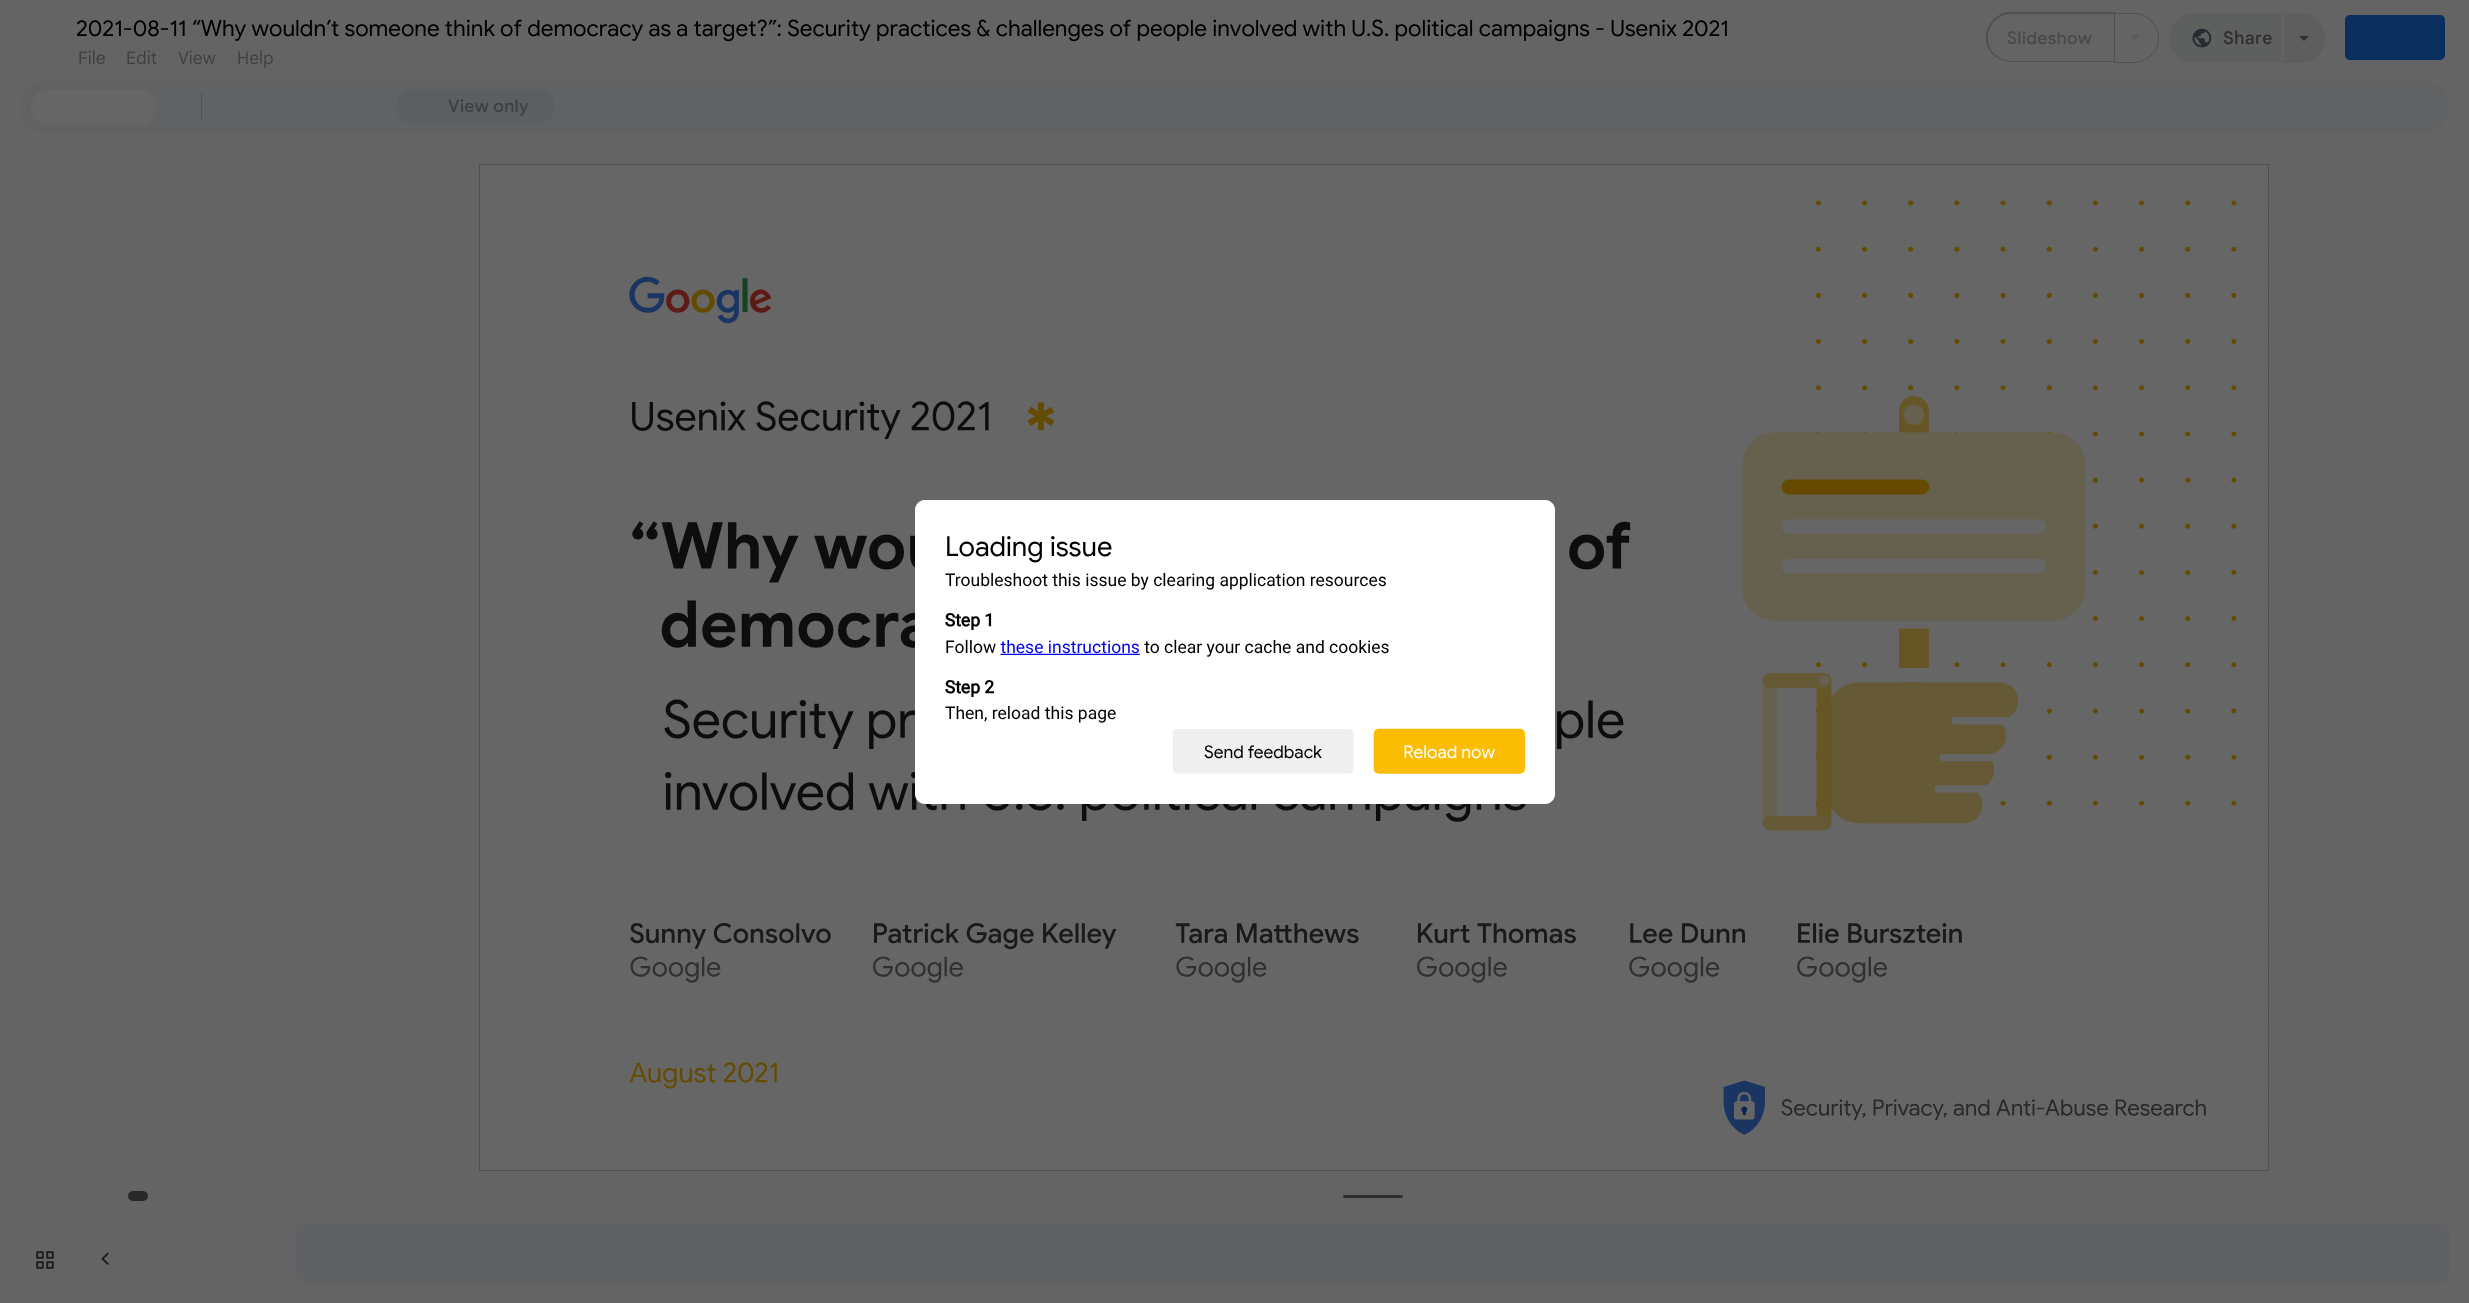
#include <cairo.h>
#include <math.h>
#include <stddef.h>

static cairo_t *c;
static void C(unsigned color){cairo_set_source_rgb(c, (color >> 16) / 255.0, (color >> 8 & 255) / 255.0, (color & 255) / 255.0);}
static void F(const char *family, double size, int italic, int bold){cairo_select_font_face(c, family, italic ? CAIRO_FONT_SLANT_ITALIC : CAIRO_FONT_SLANT_NORMAL,bold ? CAIRO_FONT_WEIGHT_BOLD : CAIRO_FONT_WEIGHT_NORMAL);cairo_set_font_size(c, size);}
static void T(double x, double y, const char *s){cairo_move_to(c, x, y);cairo_show_text(c, s);}
static void L(double x, double y, const char *s, double letter, double word){cairo_move_to(c, x, y);while (*s) {char ch[5] = {0};int n = 0;do ch[n++] = *s++; while ((*s & 0xC0) == 0x80);cairo_show_text(c, ch);cairo_rel_move_to(c, letter + word * (*ch == ' '), 0);}}
static void R(double x, double y, double w, double h){cairo_rectangle(c, x, y, w, h);cairo_fill(c);}
static void Q(double x, double y, double w, double h, double r){cairo_new_sub_path(c);cairo_arc(c, x + w - r, y + h - r, r, 0, M_PI / 2);cairo_arc(c, x + r, y + h - r, r, M_PI / 2, M_PI);cairo_arc(c, x + r, y + r, r, M_PI, 1.5 * M_PI);cairo_arc(c, x + w - r, y + r, r, 1.5 * M_PI, 2 * M_PI);cairo_close_path(c);}
static void I(const char *path, double x, double y, double w, double h){cairo_surface_t *image = cairo_image_surface_create_from_png(path);cairo_save(c);cairo_set_source_surface(c, image, x, y);cairo_rectangle(c, x, y, w, h);cairo_fill(c);cairo_restore(c);cairo_surface_destroy(image);}
int main(void) {
cairo_surface_t *surface = cairo_image_surface_create(CAIRO_FORMAT_RGB24, 2469, 1303);
c = cairo_create(surface);
cairo_font_options_t *options = cairo_font_options_create();
cairo_font_options_set_hint_metrics(options, CAIRO_HINT_METRICS_OFF);
cairo_font_options_set_hint_style(options, CAIRO_HINT_STYLE_NONE);
cairo_set_font_options(c, options);
cairo_set_miter_limit(c, 4);
C(0x646465);
cairo_paint(c);
F("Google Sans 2",22.5,0,0);
C(0x000000);
T(76,36,"2021-08-11 “Why wouldn’t someone think of democracy as a target?”: Security practices & challenges of people involved with U.S. political campaigns - Usenix 2021");
C(0x4f5050);
cairo_new_path(c);
cairo_move_to(c,2011,14);
cairo_curve_to(c,2004,14,1999,17,1995,21);
cairo_line_to(c,1993,20);
cairo_curve_to(c,1997,16,2001,14,2006,12);
cairo_line_to(c,2115,12);
cairo_line_to(c,2114,14);
cairo_close_path(c);
cairo_fill(c);
cairo_new_path(c);
cairo_move_to(c,2114,62);
cairo_line_to(c,2011,62);
cairo_curve_to(c,2004,62,1998,59,1994,55);
cairo_line_to(c,1995,54);
cairo_curve_to(c,1999,58,2004,61,2011,61);
cairo_line_to(c,2114,61);
cairo_close_path(c);
cairo_fill(c);
cairo_set_source_rgba(c,0.18,0.188,0.184,0.38);
cairo_new_path(c);
cairo_move_to(c,1986,34.5);
cairo_curve_to(c,1987,28.5,1989.5,23.5,1993.5,19.5);
cairo_line_to(c,1994.5,21);
cairo_curve_to(c,1986,30,1985.5,45.5,1994.5,54);
cairo_line_to(c,1993.5,55);
cairo_curve_to(c,1989.5,51.5,1987,46.5,1986,41.5);
cairo_close_path(c);
cairo_fill(c);
F("Google Sans Medium",17.5,0,0);
C(0x484949);
L(2007,44,"Slideshow",.25,0);
cairo_new_path(c);
cairo_move_to(c,2114.5,13.5);
cairo_line_to(c,2134,13.5);
cairo_curve_to(c,2147.5,13.5,2158.5,24.5,2158.5,38);
cairo_curve_to(c,2158.5,51.5,2147.5,62.5,2134,62.5);
cairo_line_to(c,2114.5,62.5);
cairo_close_path(c);
cairo_set_source_rgba(c,0.18,0.188,0.184,0.38);
cairo_set_line_width(c,1);
cairo_stroke(c);
C(0x5a5a5b);
cairo_new_path(c);
cairo_move_to(c,2130,35);
cairo_line_to(c,2140,35);
cairo_line_to(c,2135,40);
cairo_close_path(c);
cairo_fill(c);
C(0x5e5f5f);
cairo_new_path(c);
cairo_move_to(c,2194,13);
cairo_line_to(c,2284,13);
cairo_line_to(c,2284,63);
cairo_line_to(c,2194,63);
cairo_curve_to(c,2180,63,2169,52,2169,38);
cairo_curve_to(c,2169,24,2180,13,2194,13);
cairo_close_path(c);
cairo_fill(c);
I("1.png",2192,28,20,20);
F("Google Sans 2 Medium",17.5,0,0);
C(0x2e2e2e);
L(2223,44,"Share",.25,0);
cairo_set_source_rgba(c,0.357,0.357,0.357,0.62);
cairo_new_path(c);
cairo_move_to(c,2283,13);
cairo_line_to(c,2300,13);
cairo_curve_to(c,2314,13,2325,24,2325,38);
cairo_curve_to(c,2325,52,2314,63,2300,63);
cairo_line_to(c,2283,63);
cairo_close_path(c);
cairo_fill(c);
cairo_set_source_rgba(c,0.4,0.4,0.4,0.62);
cairo_new_path(c);
cairo_move_to(c,2284,14);
cairo_line_to(c,2284,61);
cairo_line_to(c,2282,62);
cairo_line_to(c,2282,12);
cairo_close_path(c);
cairo_fill(c);
C(0x2e2e2e);
cairo_new_path(c);
cairo_move_to(c,2299,36);
cairo_line_to(c,2309,36);
cairo_line_to(c,2304,41);
cairo_close_path(c);
cairo_fill(c);
C(0x0a2e5d);
Q(2345,15,100,45,5);
cairo_fill(c);
F("Google Sans",17.5,0,0);
C(0x3e4042);
T(78,64,"File");
T(126,64,"Edit");
T(178,64,"View");
T(237,64,"Help");
C(0x606264);
Q(20,81,2430,52,26);
cairo_fill(c);
C(0x666666);
Q(31,90,125,35,17.5);
cairo_fill(c);
C(0x505050);
R(201,94,1,25);
C(0x5c5e60);
Q(396,89,159,35,17.5);
cairo_fill(c);
F("Google Sans Medium",17.5,0,0);
C(0x3e4042);
L(448,112,"View only",.25,0);
C(0x27282a);
Q(128,1191,20,10,5);
cairo_fill(c);
I("2.png",36,1251,18,18);
I("3.png",101,1252,8,13);
I("4.png",480,165,1788,1005);
cairo_rectangle(c,479.5,164.5,1789,1006);
C(0x4e504f);
cairo_stroke(c);
I("5.png",480,165,1787,1005);
C(0x2e302f);
Q(1343,1195,60,3,1.5);
cairo_fill(c);
C(0x5f6164);
Q(295,1223,2155,60,10);
cairo_fill(c);
C(0xffffff);
Q(915,500,640,304,10);
cairo_fill(c);
I("6.png",945,536,580,238);
cairo_surface_write_to_png(surface, "o.png");
cairo_font_options_destroy(options);
cairo_destroy(c);
cairo_surface_destroy(surface);
return 0;
}
